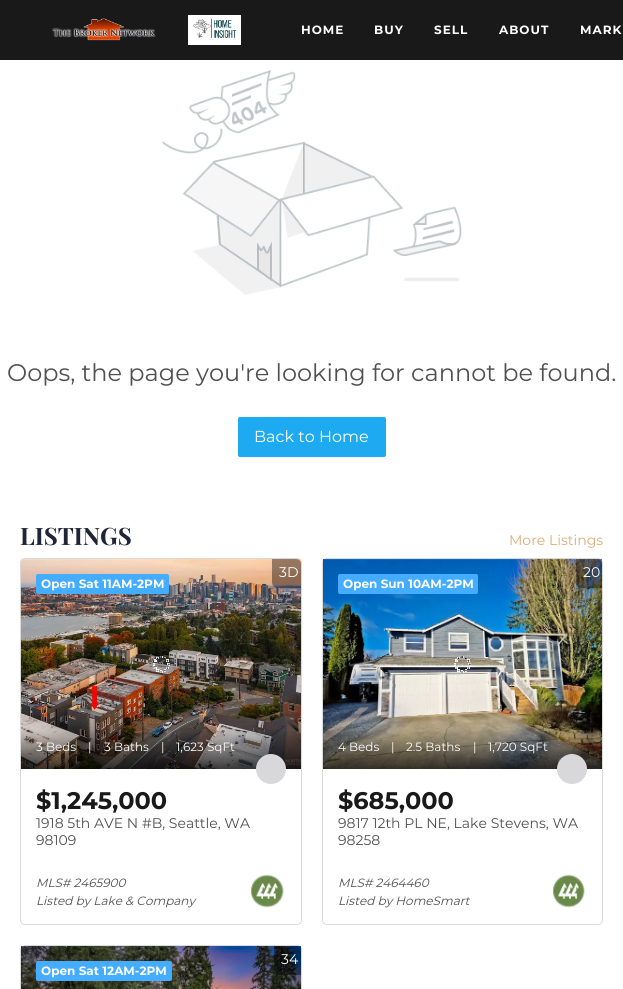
#include <cairo.h>
#include <math.h>
#include <stddef.h>

static cairo_t *c;
static void C(unsigned color){cairo_set_source_rgb(c, (color >> 16) / 255.0, (color >> 8 & 255) / 255.0, (color & 255) / 255.0);}
static void F(const char *family, double size, int italic, int bold){cairo_select_font_face(c, family, italic ? CAIRO_FONT_SLANT_ITALIC : CAIRO_FONT_SLANT_NORMAL,bold ? CAIRO_FONT_WEIGHT_BOLD : CAIRO_FONT_WEIGHT_NORMAL);cairo_set_font_size(c, size);}
static void T(double x, double y, const char *s){cairo_move_to(c, x, y);cairo_show_text(c, s);}
static void L(double x, double y, const char *s, double letter, double word){cairo_move_to(c, x, y);while (*s) {char ch[5] = {0};int n = 0;do ch[n++] = *s++; while ((*s & 0xC0) == 0x80);cairo_show_text(c, ch);cairo_rel_move_to(c, letter + word * (*ch == ' '), 0);}}
static void R(double x, double y, double w, double h){cairo_rectangle(c, x, y, w, h);cairo_fill(c);}
static void Q(double x, double y, double w, double h, double r){cairo_new_sub_path(c);cairo_arc(c, x + w - r, y + h - r, r, 0, M_PI / 2);cairo_arc(c, x + r, y + h - r, r, M_PI / 2, M_PI);cairo_arc(c, x + r, y + r, r, M_PI, 1.5 * M_PI);cairo_arc(c, x + w - r, y + r, r, 1.5 * M_PI, 2 * M_PI);cairo_close_path(c);}
static void I(const char *path, double x, double y, double w, double h){cairo_surface_t *image = cairo_image_surface_create_from_png(path);cairo_save(c);cairo_set_source_surface(c, image, x, y);cairo_rectangle(c, x, y, w, h);cairo_fill(c);cairo_restore(c);cairo_surface_destroy(image);}
int main(void) {
cairo_surface_t *surface = cairo_image_surface_create(CAIRO_FORMAT_RGB24, 623, 989);
c = cairo_create(surface);
cairo_font_options_t *options = cairo_font_options_create();
cairo_font_options_set_hint_metrics(options, CAIRO_HINT_METRICS_OFF);
cairo_font_options_set_hint_style(options, CAIRO_HINT_STYLE_NONE);
cairo_set_font_options(c, options);
cairo_set_miter_limit(c, 4);
C(0xffffff);
cairo_paint(c);
C(0x191919);
R(0,0,623,60);
I("1.png",52,18,105,23);
I("2.png",188,15,53,30);
F("Montserrat",12,0,1);
C(0xffffff);
L(301,34,"HOME",1,0);
L(374,34,"BUY",1,0);
L(434,34,"SELL",1,0);
L(499,34,"ABOUT",1,0);
L(580,34,"MARK",1,0);
I("3.png",162,70,300,225);
F("Montserrat",24,0,0);
C(0x505050);
T(7,381,"Oops, the page you're looking for cannot be found.");
C(0x1daaf0);
Q(238,417,148,40,2);
cairo_fill(c);
F("Montserrat",16,0,0);
C(0xffffff);
T(254,442,"Back to Home");
F("Playfair Display",24,0,1);
C(0x202437);
T(20,545,"LISTINGS");
F("Montserrat",14,0,0);
C(0xdbae77);
T(509,545,"More Listings");
Q(20.5,558.5,281,366,4.5);
C(0xdadada);
cairo_set_line_width(c,1);
cairo_stroke(c);
I("4.png",21,559,280,210);
I("5.png",153,656,17,17);
cairo_set_source_rgba(c,0,0,0,0.4);
cairo_new_path(c);
cairo_move_to(c,272,559);
cairo_line_to(c,296,559);
cairo_curve_to(c,299,559,301,561,301,564);
cairo_line_to(c,301,588);
cairo_line_to(c,278,588);
cairo_curve_to(c,274.5,588,272,585.5,272,582);
cairo_close_path(c);
cairo_fill(c);
C(0xffffff);
T(279,577,"3D");
F("Montserrat",12,0,0);
T(36,751,"3 Beds");
T(88,751,"|");
T(104,751,"3 Baths");
T(161,751,"|");
T(176,751,"1,623 SqFt");
C(0x45adff);
Q(36,574,133,20,2);
cairo_fill(c);
F("Montserrat",12,0,1);
C(0xffffff);
T(41,588,"Open Sat 11AM-2PM");
C(0xd8d8db);
cairo_new_path(c);
cairo_arc(c,271,769,15,0,2 * M_PI);
cairo_fill(c);
F("Montserrat",24,0,1);
C(0x191919);
T(36,809,"$1,245,000");
F("Montserrat",14,0,0);
C(0x505050);
T(36,828,"1918 5th AVE N #B, Seattle, WA");
T(36,845,"98109");
F("Montserrat",12,1,0);
T(36,887,"MLS# 2465900");
T(36,905,"Listed by Lake & Company");
I("6.png",251,874,33,34);
Q(322.5,558.5,280,366,4.5);
C(0xdadada);
cairo_stroke(c);
I("7.png",323,559,279,210);
I("8.png",454,656,17,17);
cairo_set_source_rgba(c,0,0,0,0.4);
cairo_new_path(c);
cairo_move_to(c,576,559);
cairo_line_to(c,597,559);
cairo_curve_to(c,600,559,602,561,602,564);
cairo_line_to(c,602,588);
cairo_line_to(c,582,588);
cairo_curve_to(c,578.5,588,576,585.5,576,582);
cairo_close_path(c);
cairo_fill(c);
F("Montserrat",14,0,0);
C(0xffffff);
T(583,577,"20");
F("Montserrat",12,0,0);
T(338,751,"4 Beds");
T(391,751,"|");
T(406,751,"2.5 Baths");
T(473,751,"|");
T(488,751,"1,720 SqFt");
C(0x45adff);
Q(338,574,140,20,2);
cairo_fill(c);
F("Montserrat",12,0,1);
C(0xffffff);
T(343,588,"Open Sun 10AM-2PM");
C(0xd8d8db);
cairo_new_path(c);
cairo_arc(c,572,769,15,0,2 * M_PI);
cairo_fill(c);
F("Montserrat",24,0,1);
C(0x191919);
T(338,809,"$685,000");
F("Montserrat",14,0,0);
C(0x505050);
T(338,828,"9817 12th PL NE, Lake Stevens, WA");
T(338,845,"98258");
F("Montserrat",12,1,0);
T(338,887,"MLS# 2464460");
T(338,905,"Listed by HomeSmart");
I("9.png",553,874,32,34);
Q(20.5,945.5,281,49,4.5);
C(0xdadada);
cairo_stroke(c);
I("10.png",21,946,280,43);
cairo_set_source_rgba(c,0,0,0,0.4);
cairo_new_path(c);
cairo_move_to(c,274,946);
cairo_line_to(c,296,946);
cairo_curve_to(c,299,946,301,948,301,951);
cairo_line_to(c,301,975);
cairo_line_to(c,280,975);
cairo_curve_to(c,276.5,975,274,972.5,274,969);
cairo_close_path(c);
cairo_fill(c);
F("Montserrat",14,0,0);
C(0xffffff);
T(281,964,"34");
C(0x45adff);
Q(36,961,136,20,2);
cairo_fill(c);
F("Montserrat",12,0,1);
C(0xffffff);
T(41,975,"Open Sat 12AM-2PM");
cairo_surface_write_to_png(surface, "o.png");
cairo_font_options_destroy(options);
cairo_destroy(c);
cairo_surface_destroy(surface);
return 0;
}
